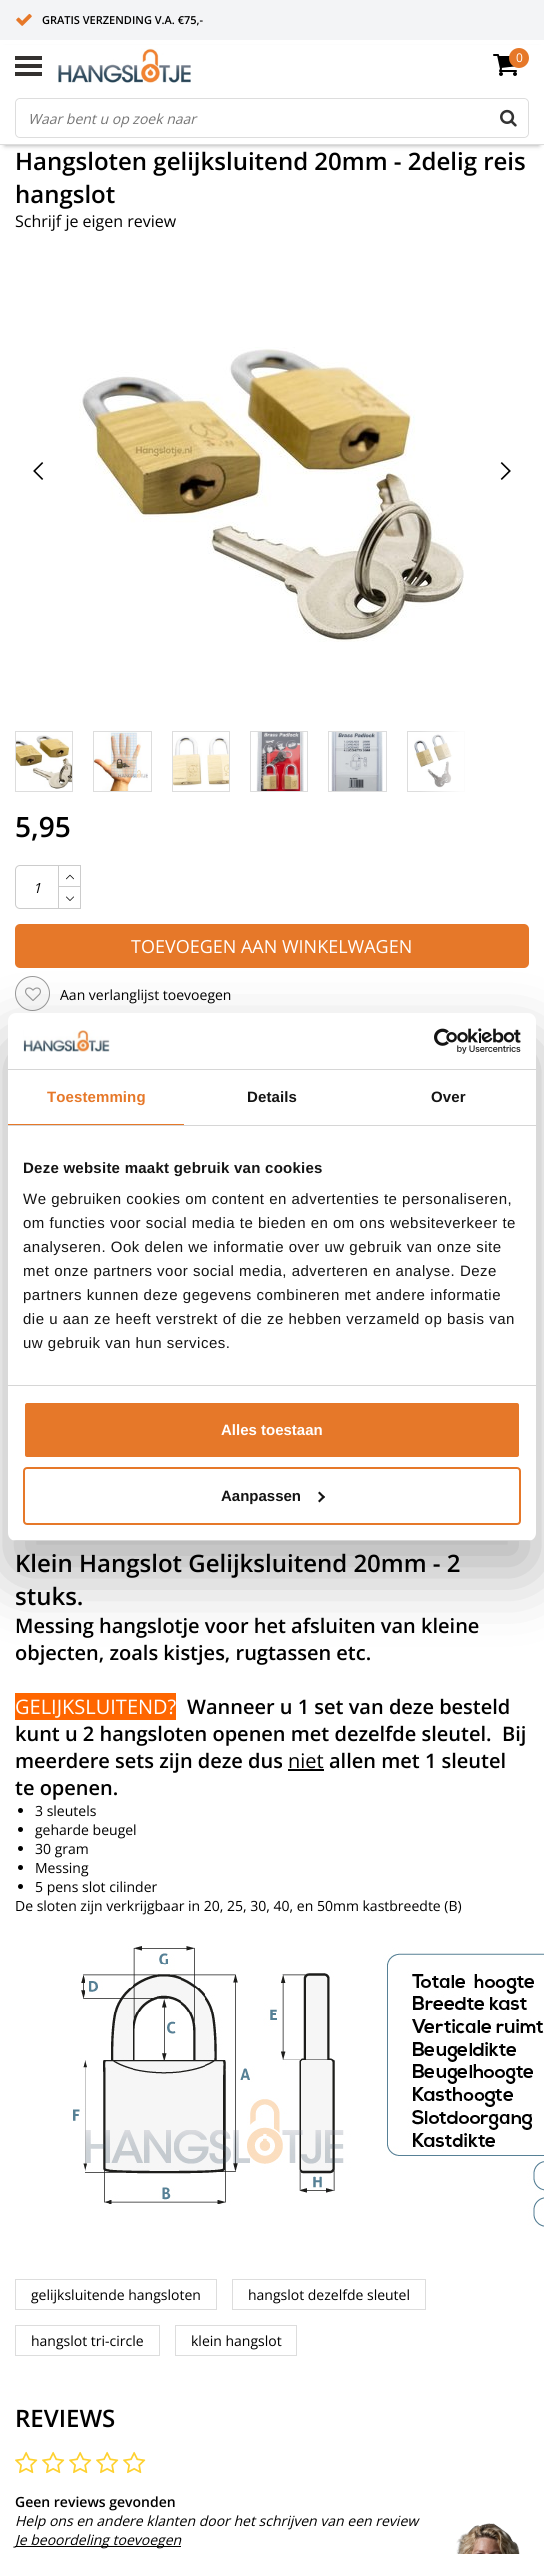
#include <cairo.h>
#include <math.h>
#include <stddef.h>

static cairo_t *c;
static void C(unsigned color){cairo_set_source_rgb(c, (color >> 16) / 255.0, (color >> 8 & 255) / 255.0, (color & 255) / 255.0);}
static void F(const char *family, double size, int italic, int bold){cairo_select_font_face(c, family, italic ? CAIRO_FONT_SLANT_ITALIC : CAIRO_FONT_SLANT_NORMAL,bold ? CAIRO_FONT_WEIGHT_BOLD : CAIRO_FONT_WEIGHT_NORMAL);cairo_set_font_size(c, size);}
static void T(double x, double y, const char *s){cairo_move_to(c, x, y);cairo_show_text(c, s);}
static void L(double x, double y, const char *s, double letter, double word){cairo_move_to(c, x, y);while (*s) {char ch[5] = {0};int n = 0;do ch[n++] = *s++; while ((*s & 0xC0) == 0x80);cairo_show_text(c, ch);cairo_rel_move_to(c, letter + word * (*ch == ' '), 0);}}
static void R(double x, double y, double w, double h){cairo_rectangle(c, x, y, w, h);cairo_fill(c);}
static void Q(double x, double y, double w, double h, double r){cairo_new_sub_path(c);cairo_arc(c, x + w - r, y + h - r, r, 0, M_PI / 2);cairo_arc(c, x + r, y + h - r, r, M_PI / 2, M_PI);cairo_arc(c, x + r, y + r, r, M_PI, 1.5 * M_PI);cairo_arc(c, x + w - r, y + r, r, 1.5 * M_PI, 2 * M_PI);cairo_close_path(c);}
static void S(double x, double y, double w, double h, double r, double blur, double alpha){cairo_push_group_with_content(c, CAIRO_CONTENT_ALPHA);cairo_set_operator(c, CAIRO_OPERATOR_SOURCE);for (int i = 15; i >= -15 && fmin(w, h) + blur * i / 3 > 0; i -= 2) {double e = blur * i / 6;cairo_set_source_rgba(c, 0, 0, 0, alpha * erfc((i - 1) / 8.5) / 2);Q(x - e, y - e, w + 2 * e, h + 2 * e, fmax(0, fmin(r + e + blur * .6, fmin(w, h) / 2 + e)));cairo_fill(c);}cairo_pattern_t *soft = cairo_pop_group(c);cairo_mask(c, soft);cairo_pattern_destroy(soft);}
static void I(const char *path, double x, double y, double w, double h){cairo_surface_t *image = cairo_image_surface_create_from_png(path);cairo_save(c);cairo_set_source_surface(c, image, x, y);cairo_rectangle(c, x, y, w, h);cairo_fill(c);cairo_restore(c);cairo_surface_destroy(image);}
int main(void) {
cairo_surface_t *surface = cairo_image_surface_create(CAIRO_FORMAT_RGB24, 544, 2554);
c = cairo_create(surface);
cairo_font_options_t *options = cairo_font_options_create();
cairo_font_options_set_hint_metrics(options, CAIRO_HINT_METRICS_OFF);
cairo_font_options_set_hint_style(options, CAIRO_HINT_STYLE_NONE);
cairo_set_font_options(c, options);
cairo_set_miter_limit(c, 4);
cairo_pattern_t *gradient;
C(0xffffff);
cairo_paint(c);
C(0xf3f4f6);
R(0,0,544,40);
I("1.png",16,13,16,13);
F("Open Sans SemiBold",11,0,0);
C(0x000000);
T(42,24,"GRATIS VERZENDING V.A. €75,-");
C(0x000000);
S(5,50,534,95,0,2.5,.4);
C(0xffffff);
R(0,45,544,99);
C(0xdddddd);
R(0,144,544,1);
C(0x34312f);
R(15,56,27,4);
R(15,64,27,4);
R(15,72,27,4);
I("2.png",58,48,133,35);
I("3.png",493,54,24,22);
C(0xe67829);
cairo_arc(c,519,58,10,0,2 * M_PI);
cairo_fill(c);
F("Open Sans",12,0,0);
C(0xffffff);
T(516,62,"0");
Q(15.5,98.5,513,39,4.5);
C(0xdddddd);
cairo_set_line_width(c,1);
cairo_stroke(c);
C(0xffffff);
Q(16,99,512,38,5);
cairo_fill(c);
F("Open Sans",14,1,0);
C(0x757575);
T(28,124,"Waar bent u op zoek naar");
I("4.png",500,109,17,18);
F("Open Sans SemiBold",24,0,0);
C(0x000000);
T(15,170,"Hangsloten gelijksluitend 20mm - 2delig reis");
T(15,203,"hangslot");
F("Open Sans",16,0,0);
T(15,227,"Schrijf je eigen review");
I("5.png",79,347,385,295);
I("6.png",33,462,11,18);
I("7.png",500,462,11,18);
cairo_rectangle(c,15.5,731.5,57,60);
C(0xdddddd);
cairo_stroke(c);
I("8.png",16,735,56,54);
cairo_rectangle(c,93.5,731.5,58,60);
cairo_stroke(c);
I("9.png",94,732,54,59);
cairo_rectangle(c,172.5,731.5,57,60);
cairo_stroke(c);
I("10.png",173,736,56,50);
cairo_rectangle(c,250.5,731.5,57,60);
cairo_stroke(c);
I("11.png",256,732,48,59);
cairo_rectangle(c,328.5,731.5,58,60);
cairo_stroke(c);
I("12.png",331,732,52,59);
cairo_rectangle(c,407.5,731.5,57,60);
cairo_stroke(c);
I("13.png",414,732,39,56);
gradient = cairo_pattern_create_linear(420,762,465,762);
cairo_pattern_add_color_stop_rgba(gradient,0,1,1,1,0);
cairo_pattern_add_color_stop_rgba(gradient,.9,1,1,1,.9);
cairo_set_source(c,gradient);
cairo_pattern_destroy(gradient);
R(421,731,44,61);
F("Open Sans SemiBold",28,0,0);
C(0x000000);
T(15,837,"5,95");
cairo_new_path(c);
cairo_move_to(c,20,865.5);
cairo_line_to(c,58.5,865.5);
cairo_line_to(c,58.5,908.5);
cairo_line_to(c,20,908.5);
cairo_curve_to(c,17.5,908.5,15.5,906.5,15.5,904);
cairo_line_to(c,15.5,870);
cairo_curve_to(c,15.5,867.5,17.5,865.5,20,865.5);
cairo_close_path(c);
C(0xcccccc);
cairo_stroke(c);
F("Open Sans",14,1,0);
C(0x000000);
T(33,893,"1");
C(0xcccccc);
R(59,865,22,1);
R(80,865,1,44);
R(59,886,22,1);
I("14.png",66,874,8,6);
R(59,908,22,1);
I("15.png",66,896,8,5);
C(0xe67829);
Q(15,924,514,44,5);
cairo_fill(c);
F("Open Sans",18,0,0);
C(0xffffff);
T(131,953,"TOEVOEGEN AAN WINKELWAGEN");
C(0xfafafa);
cairo_new_path(c);
cairo_arc(c,32.5,993.5,17,0,2 * M_PI);
cairo_fill_preserve(c);
C(0x999999);
cairo_stroke(c);
I("16.png",25,987,16,14);
F("Open Sans",14,0,0);
C(0x000000);
T(60,1000,"Aan verlanglijst toevoegen");
F("Open Sans SemiBold",24,0,0);
T(15,1572,"Klein Hangslot Gelijksluitend 20mm - 2");
T(15,1605,"stuks.");
F("Open Sans SemiBold",20,0,0);
T(15,1633,"Messing hangslotje voor het afsluiten van kleine");
T(15,1660,"objecten, zoals kistjes, rugtassen etc.");
C(0xff6600);
R(15,1693,161,27);
F("Open Sans",20,0,0);
C(0xffffff);
T(15,1714,"GELIJKSLUITEND?");
F("Open Sans SemiBold",20,0,0);
C(0x000000);
T(187,1714,"Wanneer u 1 set van deze besteld");
T(15,1741,"kunt u 2 hangsloten openen met dezelfde sleutel.  Bij");
T(15,1768,"meerdere sets zijn deze dus");
F("Open Sans",20,0,0);
T(288,1768,"niet");
R(288,1769,36,2);
F("Open Sans SemiBold",20,0,0);
T(329,1768,"allen met 1 sleutel");
T(15,1795,"te openen.");
cairo_new_path(c);
cairo_arc(c,20.5,1810.5,2.5,0,2 * M_PI);
cairo_fill(c);
F("Open Sans",14,0,0);
T(35,1816,"3 sleutels");
cairo_new_path(c);
cairo_arc(c,20.5,1829.5,2.5,0,2 * M_PI);
cairo_fill(c);
T(35,1835,"geharde beugel");
cairo_new_path(c);
cairo_arc(c,20.5,1848.5,2.5,0,2 * M_PI);
cairo_fill(c);
T(35,1854,"30 gram");
cairo_new_path(c);
cairo_arc(c,20.5,1867.5,2.5,0,2 * M_PI);
cairo_fill(c);
T(35,1873,"Messing");
cairo_new_path(c);
cairo_arc(c,20.5,1886.5,2.5,0,2 * M_PI);
cairo_fill(c);
T(35,1892,"5 pens slot cilinder");
T(15,1911,"De sloten zijn verkrijgbaar in 20, 25, 30, 40, en 50mm kastbreedte (B)");
I("17.png",73,1946,471,281);
cairo_rectangle(c,15.5,2279.5,201,30);
C(0xdddddd);
cairo_stroke(c);
C(0x000000);
T(31,2300,"gelijksluitende hangsloten");
cairo_rectangle(c,232.5,2279.5,193,30);
C(0xdddddd);
cairo_stroke(c);
C(0x000000);
T(248,2300,"hangslot dezelfde sleutel");
cairo_rectangle(c,15.5,2325.5,144,30);
C(0xdddddd);
cairo_stroke(c);
C(0x000000);
T(31,2346,"hangslot tri-circle");
cairo_rectangle(c,175.5,2325.5,121,30);
C(0xdddddd);
cairo_stroke(c);
C(0x000000);
T(191,2346,"klein hangslot");
F("Open Sans SemiBold",24,0,0);
T(15,2427,"REVIEWS");
I("18.png",15,2451,23,23);
I("18.png",42,2451,23,23);
I("18.png",69,2451,23,23);
I("18.png",96,2451,23,23);
I("18.png",123,2451,23,23);
F("Open Sans SemiBold",14,0,0);
T(15,2507,"Geen reviews gevonden");
F("Open Sans",14,1,0);
T(15,2526,"Help ons en andere klanten door het schrijven van een review");
R(15,2546,166,1);
T(15,2545,"Je beoordeling toevoegen");
I("19.png",456,2523,64,31);
C(0x000000);
S(8,1045,528,528,8,34,.3);
C(0xffffff);
Q(8,1013,528,528,8);
cairo_fill(c);
C(0xd6d6d6);
R(8,1069,528,1);
I("20.png",23,1030,87,22);
I("21.png",434,1028,87,26);
R(8,1125,528,1);
C(0xe67829);
R(8,1124,176,1);
F("Liberation Sans",15,0,1);
L(47,1102,"Toestemming",.1,0);
C(0x141414);
L(247,1102,"Details",.1,0);
L(431,1102,"Over",.1,0);
C(0xd6d6d6);
R(8,1385,528,1);
C(0x141414);
L(23,1173,"Deze website maakt gebruik van cookies",.25,0);
F("Liberation Sans",15,0,0);
L(23,1204,"We gebruiken cookies om content en advertenties te personaliseren,",.5,0);
L(23,1228,"om functies voor social media te bieden en om ons websiteverkeer te",.5,0);
L(23,1252,"analyseren. Ook delen we informatie over uw gebruik van onze site",.5,0);
L(23,1276,"met onze partners voor social media, adverteren en analyse. Deze",.5,0);
L(23,1300,"partners kunnen deze gegevens combineren met andere informatie",.5,0);
L(23,1324,"die u aan ze heeft verstrekt of die ze hebben verzameld op basis van",.5,0);
L(23,1348,"uw gebruik van hun services.",.5,0);
cairo_save(c);
Q(8,1013,528,528,8);
cairo_clip(c);
C(0xd6d6d6);
R(8,1540,528,1);
cairo_restore(c);
C(0xe67829);
Q(24,1402,496,56,3);
cairo_fill_preserve(c);
C(0xffffff);
cairo_set_line_width(c,2);
cairo_stroke(c);
F("Liberation Sans",15,0,1);
T(221,1435,"Alles toestaan");
Q(24,1468,496,56,3);
C(0xe67829);
cairo_stroke(c);
C(0x141414);
T(221,1501,"Aanpassen");
cairo_new_path(c);
cairo_move_to(c,319.5,1491.5);
cairo_line_to(c,325,1497);
cairo_line_to(c,323.5,1498.5);
cairo_line_to(c,318,1493);
cairo_close_path(c);
cairo_fill(c);
cairo_new_path(c);
cairo_move_to(c,323.5,1495.5);
cairo_line_to(c,325,1497);
cairo_line_to(c,319.5,1502.5);
cairo_line_to(c,318,1501);
cairo_close_path(c);
cairo_fill(c);
cairo_surface_write_to_png(surface, "o.png");
cairo_font_options_destroy(options);
cairo_destroy(c);
cairo_surface_destroy(surface);
return 0;
}
